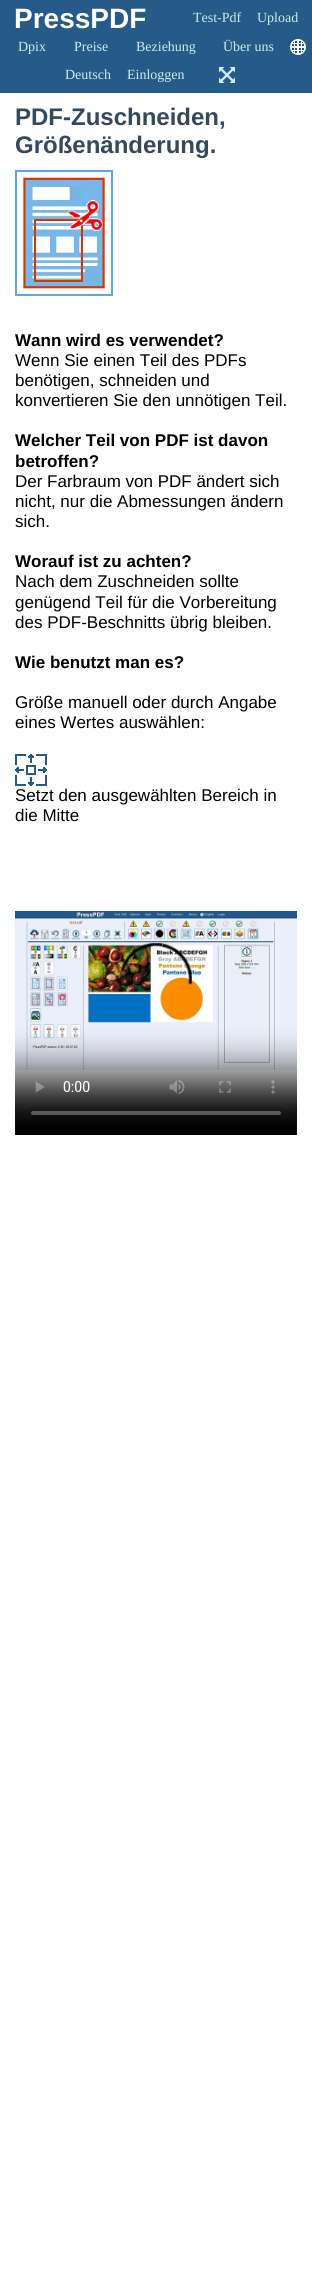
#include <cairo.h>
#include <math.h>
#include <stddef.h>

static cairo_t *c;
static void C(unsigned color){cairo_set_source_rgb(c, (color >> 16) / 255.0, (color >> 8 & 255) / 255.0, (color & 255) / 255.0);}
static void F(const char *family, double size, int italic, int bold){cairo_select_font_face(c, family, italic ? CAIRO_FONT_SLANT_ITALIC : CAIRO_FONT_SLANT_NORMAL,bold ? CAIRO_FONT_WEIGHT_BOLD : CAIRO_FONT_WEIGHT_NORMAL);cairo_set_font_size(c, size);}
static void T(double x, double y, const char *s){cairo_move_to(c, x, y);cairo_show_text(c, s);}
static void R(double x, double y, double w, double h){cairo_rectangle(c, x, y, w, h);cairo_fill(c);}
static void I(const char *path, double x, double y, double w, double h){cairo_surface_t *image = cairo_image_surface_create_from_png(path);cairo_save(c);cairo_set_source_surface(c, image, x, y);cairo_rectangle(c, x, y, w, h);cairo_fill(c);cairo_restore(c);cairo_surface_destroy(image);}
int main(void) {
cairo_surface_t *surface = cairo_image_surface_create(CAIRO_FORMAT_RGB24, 312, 2279);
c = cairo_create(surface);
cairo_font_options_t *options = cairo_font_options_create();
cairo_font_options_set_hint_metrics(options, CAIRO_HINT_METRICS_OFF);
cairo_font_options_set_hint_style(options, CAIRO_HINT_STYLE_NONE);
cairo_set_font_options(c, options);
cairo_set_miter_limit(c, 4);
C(0xffffff);
cairo_paint(c);
C(0x265a88);
R(0,0,312,93);
F("Liberation Sans",28,0,1);
C(0xffffff);
T(14,28,"PressPDF");
F("Liberation Serif",14,0,0);
C(0xccece6);
T(193,22,"Test-Pdf");
T(257,22,"Upload");
T(18,51,"Dpix");
T(74,51,"Preise");
T(136,51,"Beziehung");
T(223,51,"Über uns");
I("1.png",290,39,16,16);
T(65,79,"Deutsch");
T(127,79,"Einloggen");
I("2.png",219,67,16,16);
F("Liberation Sans",24,0,1);
C(0x34495e);
T(15,125,"PDF-Zuschneiden,");
T(15,153,"Größenänderung.");
I("3.png",15,170,98,126);
F("Liberation Sans",17,0,1);
C(0x000000);
T(15,346,"Wann wird es verwendet?");
F("Liberation Sans",17,0,0);
T(15,366,"Wenn Sie einen Teil des PDFs");
T(15,386,"benötigen, schneiden und");
T(15,406,"konvertieren Sie den unnötigen Teil.");
F("Liberation Sans",17,0,1);
T(15,446,"Welcher Teil von PDF ist davon");
T(15,467,"betroffen?");
F("Liberation Sans",17,0,0);
T(15,487,"Der Farbraum von PDF ändert sich");
T(15,507,"nicht, nur die Abmessungen ändern");
T(15,527,"sich.");
F("Liberation Sans",17,0,1);
T(15,567,"Worauf ist zu achten?");
F("Liberation Sans",17,0,0);
T(15,587,"Nach dem Zuschneiden sollte");
T(15,608,"genügend Teil für die Vorbereitung");
T(15,628,"des PDF-Beschnitts übrig bleiben.");
F("Liberation Sans",17,0,1);
T(15,668,"Wie benutzt man es?");
F("Liberation Sans",17,0,0);
T(15,708,"Größe manuell oder durch Angabe");
T(15,728,"eines Wertes auswählen:");
I("4.png",15,754,32,32);
T(15,801,"Setzt den ausgewählten Bereich in");
T(15,821,"die Mitte");
I("5.png",15,911,282,224);
cairo_surface_write_to_png(surface, "o.png");
cairo_font_options_destroy(options);
cairo_destroy(c);
cairo_surface_destroy(surface);
return 0;
}
